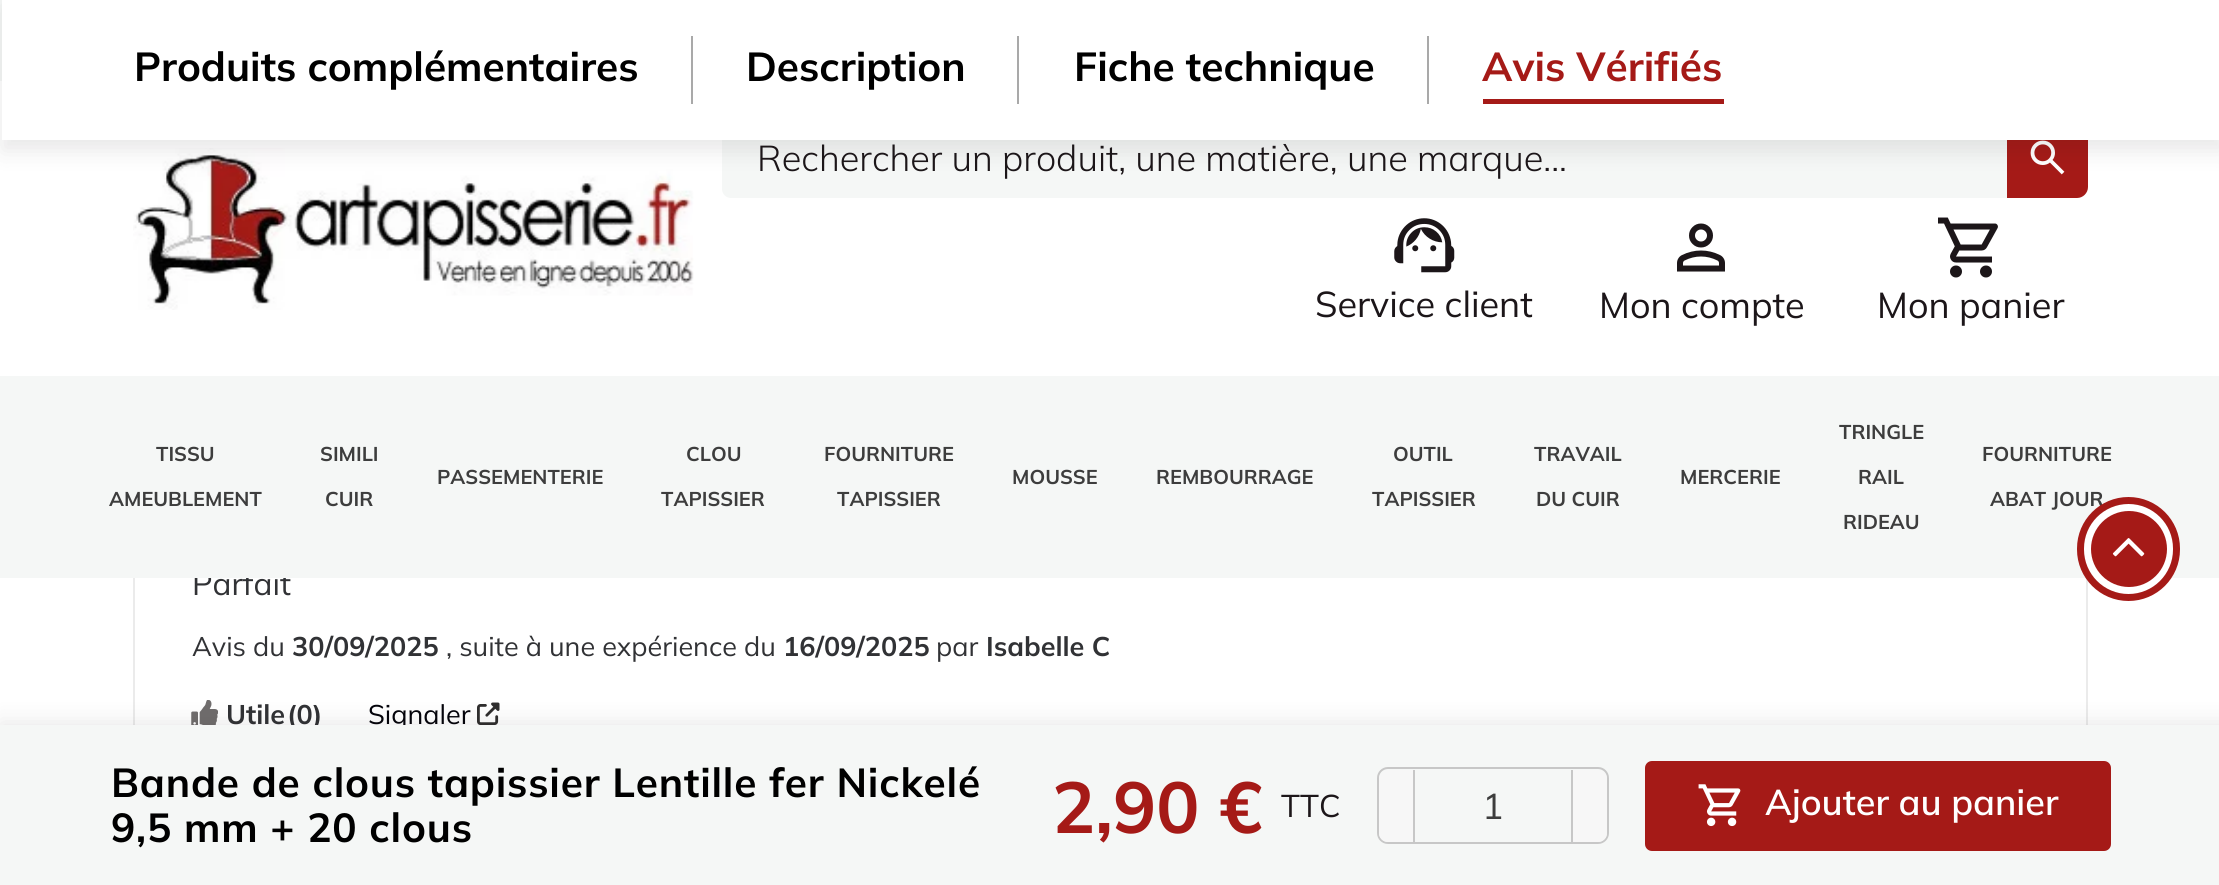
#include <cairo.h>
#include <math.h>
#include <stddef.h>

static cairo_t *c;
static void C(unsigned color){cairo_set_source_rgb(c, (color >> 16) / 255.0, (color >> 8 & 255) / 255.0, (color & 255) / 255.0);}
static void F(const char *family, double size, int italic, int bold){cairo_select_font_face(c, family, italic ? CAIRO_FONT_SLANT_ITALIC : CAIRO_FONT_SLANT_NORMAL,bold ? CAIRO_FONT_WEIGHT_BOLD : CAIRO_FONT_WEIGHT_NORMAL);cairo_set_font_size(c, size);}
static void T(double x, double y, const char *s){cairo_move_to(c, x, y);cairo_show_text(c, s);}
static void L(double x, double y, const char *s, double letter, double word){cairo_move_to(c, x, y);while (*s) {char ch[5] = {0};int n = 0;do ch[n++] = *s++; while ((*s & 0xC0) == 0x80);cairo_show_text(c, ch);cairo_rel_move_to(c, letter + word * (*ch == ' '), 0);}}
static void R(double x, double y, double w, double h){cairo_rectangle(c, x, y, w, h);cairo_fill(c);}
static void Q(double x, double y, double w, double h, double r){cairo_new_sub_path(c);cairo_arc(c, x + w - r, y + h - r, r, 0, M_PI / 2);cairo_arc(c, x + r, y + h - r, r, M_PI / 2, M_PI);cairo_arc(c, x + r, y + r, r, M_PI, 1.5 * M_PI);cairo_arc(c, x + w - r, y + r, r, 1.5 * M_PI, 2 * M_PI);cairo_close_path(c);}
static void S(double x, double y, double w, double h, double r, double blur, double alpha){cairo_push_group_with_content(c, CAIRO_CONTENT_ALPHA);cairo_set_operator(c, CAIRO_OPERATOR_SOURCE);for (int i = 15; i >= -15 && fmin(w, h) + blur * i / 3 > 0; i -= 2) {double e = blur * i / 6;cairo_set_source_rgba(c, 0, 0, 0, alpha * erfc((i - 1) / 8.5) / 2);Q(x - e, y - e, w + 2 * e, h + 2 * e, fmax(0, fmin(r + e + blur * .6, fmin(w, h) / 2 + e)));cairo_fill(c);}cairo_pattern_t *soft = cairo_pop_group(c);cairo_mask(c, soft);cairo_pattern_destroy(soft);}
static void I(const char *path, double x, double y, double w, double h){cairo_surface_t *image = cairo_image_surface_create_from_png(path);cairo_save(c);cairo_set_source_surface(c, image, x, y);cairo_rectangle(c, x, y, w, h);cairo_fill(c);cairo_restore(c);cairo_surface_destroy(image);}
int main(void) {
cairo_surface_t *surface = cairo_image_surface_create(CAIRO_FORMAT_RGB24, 2219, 885);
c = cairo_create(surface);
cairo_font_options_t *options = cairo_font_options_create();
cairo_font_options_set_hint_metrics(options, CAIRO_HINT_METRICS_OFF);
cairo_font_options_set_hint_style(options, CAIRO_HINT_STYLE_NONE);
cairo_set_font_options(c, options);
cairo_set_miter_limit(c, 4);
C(0xffffff);
cairo_paint(c);
cairo_rectangle(c,134,-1,1953,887);
C(0xebebeb);
cairo_stroke(c);
C(0xffffff);
R(133,81,1955,295);
C(0xf5f7f6);
R(0,0,2,81);
I("4.png",133,148,561,162);
cairo_new_path(c);
cairo_move_to(c,731,117);
cairo_line_to(c,2007,117);
cairo_line_to(c,2007,198);
cairo_line_to(c,731,198);
cairo_curve_to(c,726,198,722,194,722,189);
cairo_line_to(c,722,126);
cairo_curve_to(c,722,121,726,117,731,117);
cairo_close_path(c);
cairo_fill(c);
C(0xa51a17);
cairo_new_path(c);
cairo_move_to(c,2007,117);
cairo_line_to(c,2077,117);
cairo_curve_to(c,2083,117,2088,122,2088,128);
cairo_line_to(c,2088,187);
cairo_curve_to(c,2088,193,2083,198,2077,198);
cairo_line_to(c,2007,198);
cairo_close_path(c);
cairo_fill(c);
I("5.png",2030,140,35,35);
C(0x1c1619);
S(2,7,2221,144,0,11,.1);
C(0xffffff);
R(2,0,2217,140);
F("Mulish",40.5,0,1);
C(0x000000);
T(134,81,"Produits complémentaires");
C(0xa9a9a9);
R(691,36,2,68);
C(0x000000);
T(746,81,"Description");
C(0xa9a9a9);
R(1017,36,2,68);
C(0x000000);
T(1074,81,"Fiche technique");
C(0xa9a9a9);
R(1427,36,2,68);
C(0xa51a17);
R(1483,99,241,5);
T(1482,81,"Avis Vérifiés");
F("Mulish ExtraLight",31.5,0,0);
C(0x313235);
T(192,595,"Parfait");
F("Mulish ExtraLight",27,0,0);
T(192,656,"Avis du");
F("Mulish",27,0,1);
T(292,656,"30/09/2025");
F("Mulish ExtraLight",27,0,0);
T(446,656,", suite à une expérience du");
F("Mulish",27,0,1);
T(783,656,"16/09/2025");
F("Mulish ExtraLight",27,0,0);
T(936,656,"par");
F("Mulish",27,0,1);
T(986,656,"Isabelle C");
I("1.png",191,700,27,25);
T(226,724,"Utile");
T(287,724,"(0)");
F("Mulish ExtraLight",27,0,0);
C(0x03030a);
T(368,724,"Signaler");
I("2.png",477,702,23,23);
C(0x1c1619);
S(0,722,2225,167,0,11,.1);
C(0xf5f7f6);
R(0,725,2219,160);
F("Mulish",40.5,0,1);
C(0x000000);
L(111,797,"Bande de clous tapissier Lentille fer Nickelé",.8,0);
L(111,842,"9,5 mm + 20 clous",.8,0);
F("Mulish",72,0,1);
C(0xa51a17);
T(1052,833,"2,90 €");
F("Mulish ExtraLight",31.5,0,0);
C(0x1c1619);
T(1281,817,"TTC");
Q(1378,768,230,75,10);
C(0xc7c7c7);
cairo_stroke(c);
C(0xf7f7f7);
cairo_new_path(c);
cairo_move_to(c,1388,770);
cairo_line_to(c,1415,770);
cairo_line_to(c,1415,842);
cairo_line_to(c,1388,842);
cairo_curve_to(c,1383,842,1379,838,1379,833);
cairo_line_to(c,1379,779);
cairo_curve_to(c,1379,774,1383,770,1388,770);
cairo_close_path(c);
cairo_fill(c);
cairo_new_path(c);
cairo_move_to(c,1571,770);
cairo_line_to(c,1598,770);
cairo_curve_to(c,1603,770,1607,774,1607,779);
cairo_line_to(c,1607,833);
cairo_curve_to(c,1607,838,1603,842,1598,842);
cairo_line_to(c,1571,842);
cairo_close_path(c);
cairo_fill(c);
C(0xc7c7c7);
R(1571,770,2,72);
R(1413,770,2,72);
F("Mulish ExtraLight",36,0,0);
C(0x3d3d3d);
T(1482,819,"1");
C(0xa51a17);
Q(1645,761,466,90,7);
cairo_fill(c);
I("3.png",1698,784,43,43);
F("Mulish SemiBold",36,0,0);
C(0xffffff);
T(1765,815,"Ajouter au panier");
F("Mulish Light",36,0,0);
C(0x1c1619);
T(757,171,"Rechercher un produit, une matière, une marque...");
I("6.png",1394,218,61,55);
F("Mulish ExtraLight",36,0,0);
T(1315,317,"Service client");
I("7.png",1677,223,48,49);
T(1599,318,"Mon compte");
I("8.png",1938,217,60,61);
T(1877,318,"Mon panier");
C(0xf5f7f6);
R(0,376,2219,202);
F("Mulish",20,0,1);
C(0x3d3d3d);
T(156,461,"TISSU");
T(109,506,"AMEUBLEMENT");
T(320,461,"SIMILI");
T(325,506,"CUIR");
T(437,484,"PASSEMENTERIE");
T(686,461,"CLOU");
T(661,506,"TAPISSIER");
T(824,461,"FOURNITURE");
T(837,506,"TAPISSIER");
T(1012,484,"MOUSSE");
T(1156,484,"REMBOURRAGE");
T(1393,461,"OUTIL");
T(1372,506,"TAPISSIER");
T(1534,461,"TRAVAIL");
T(1536,506,"DU CUIR");
T(1680,484,"MERCERIE");
T(1839,439,"TRINGLE");
T(1858,484,"RAIL");
T(1843,529,"RIDEAU");
T(1982,461,"FOURNITURE");
T(1990,506,"ABAT JOUR");
C(0xa51a17);
cairo_new_path(c);
cairo_arc(c,2129,549,41.5,0,2 * M_PI);
cairo_fill_preserve(c);
C(0xffffff);
cairo_set_line_width(c,7);
cairo_stroke(c);
Q(2080.5,500.5,96,97,48);
C(0xa51a17);
cairo_stroke(c);
I("9.png",2112,538,33,19);
cairo_surface_write_to_png(surface, "o.png");
cairo_font_options_destroy(options);
cairo_destroy(c);
cairo_surface_destroy(surface);
return 0;
}
